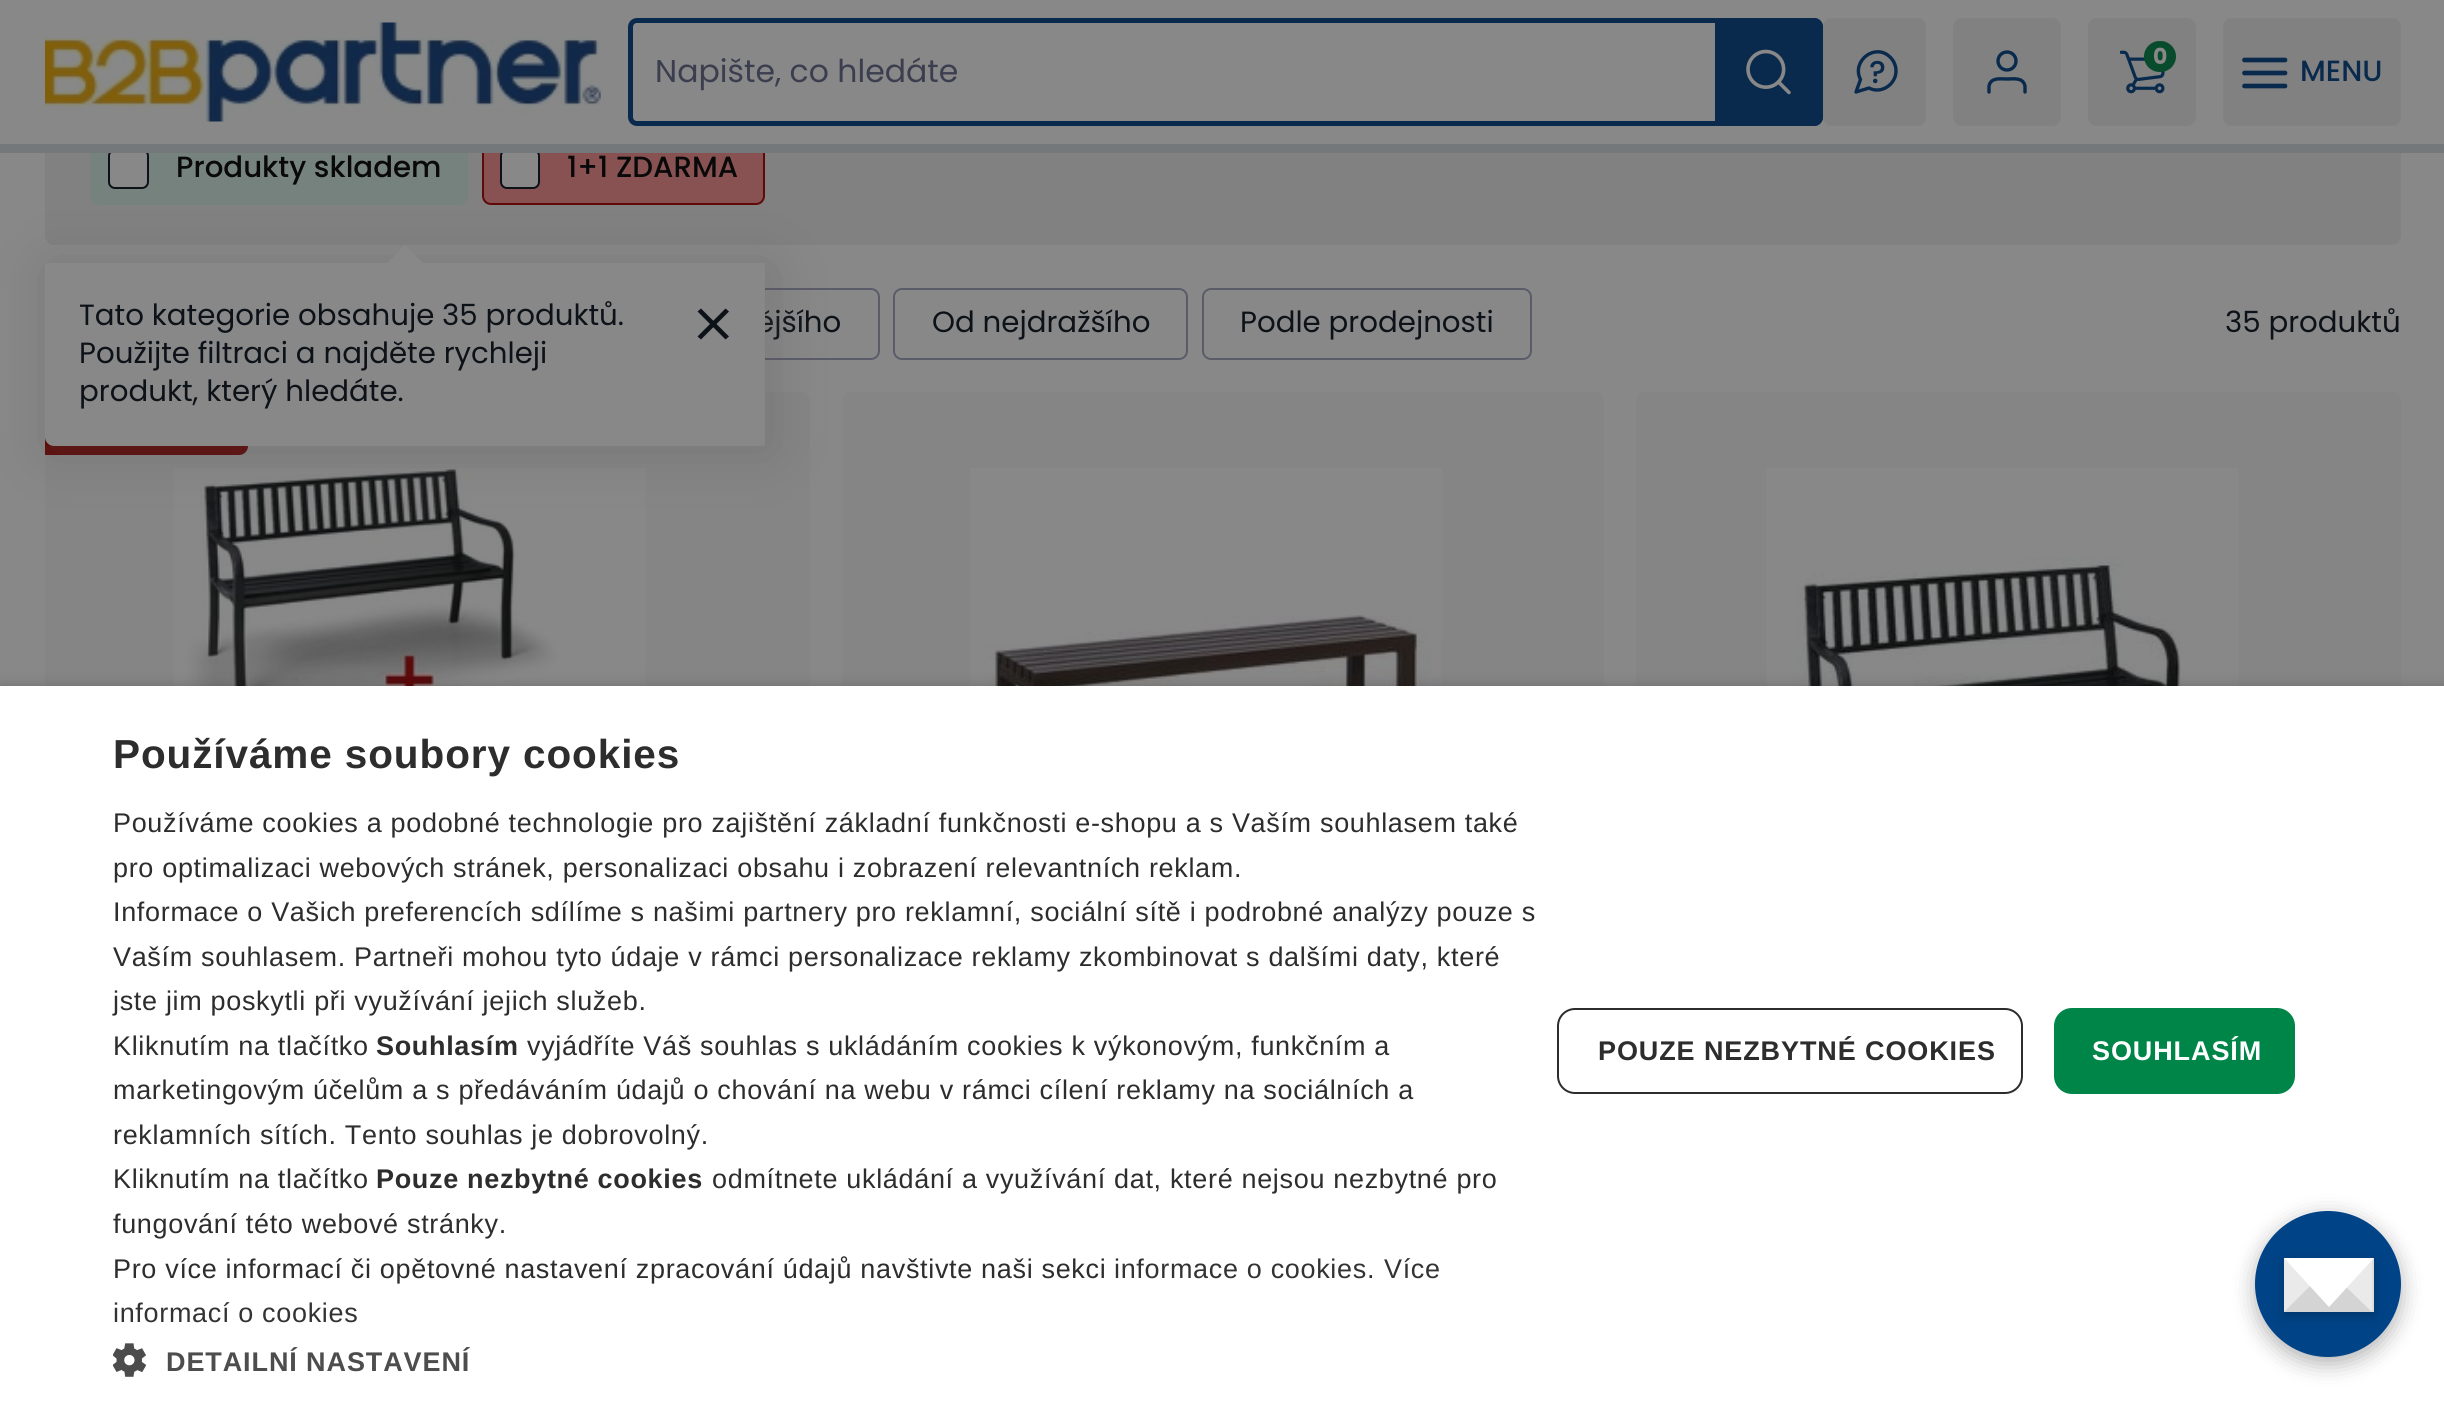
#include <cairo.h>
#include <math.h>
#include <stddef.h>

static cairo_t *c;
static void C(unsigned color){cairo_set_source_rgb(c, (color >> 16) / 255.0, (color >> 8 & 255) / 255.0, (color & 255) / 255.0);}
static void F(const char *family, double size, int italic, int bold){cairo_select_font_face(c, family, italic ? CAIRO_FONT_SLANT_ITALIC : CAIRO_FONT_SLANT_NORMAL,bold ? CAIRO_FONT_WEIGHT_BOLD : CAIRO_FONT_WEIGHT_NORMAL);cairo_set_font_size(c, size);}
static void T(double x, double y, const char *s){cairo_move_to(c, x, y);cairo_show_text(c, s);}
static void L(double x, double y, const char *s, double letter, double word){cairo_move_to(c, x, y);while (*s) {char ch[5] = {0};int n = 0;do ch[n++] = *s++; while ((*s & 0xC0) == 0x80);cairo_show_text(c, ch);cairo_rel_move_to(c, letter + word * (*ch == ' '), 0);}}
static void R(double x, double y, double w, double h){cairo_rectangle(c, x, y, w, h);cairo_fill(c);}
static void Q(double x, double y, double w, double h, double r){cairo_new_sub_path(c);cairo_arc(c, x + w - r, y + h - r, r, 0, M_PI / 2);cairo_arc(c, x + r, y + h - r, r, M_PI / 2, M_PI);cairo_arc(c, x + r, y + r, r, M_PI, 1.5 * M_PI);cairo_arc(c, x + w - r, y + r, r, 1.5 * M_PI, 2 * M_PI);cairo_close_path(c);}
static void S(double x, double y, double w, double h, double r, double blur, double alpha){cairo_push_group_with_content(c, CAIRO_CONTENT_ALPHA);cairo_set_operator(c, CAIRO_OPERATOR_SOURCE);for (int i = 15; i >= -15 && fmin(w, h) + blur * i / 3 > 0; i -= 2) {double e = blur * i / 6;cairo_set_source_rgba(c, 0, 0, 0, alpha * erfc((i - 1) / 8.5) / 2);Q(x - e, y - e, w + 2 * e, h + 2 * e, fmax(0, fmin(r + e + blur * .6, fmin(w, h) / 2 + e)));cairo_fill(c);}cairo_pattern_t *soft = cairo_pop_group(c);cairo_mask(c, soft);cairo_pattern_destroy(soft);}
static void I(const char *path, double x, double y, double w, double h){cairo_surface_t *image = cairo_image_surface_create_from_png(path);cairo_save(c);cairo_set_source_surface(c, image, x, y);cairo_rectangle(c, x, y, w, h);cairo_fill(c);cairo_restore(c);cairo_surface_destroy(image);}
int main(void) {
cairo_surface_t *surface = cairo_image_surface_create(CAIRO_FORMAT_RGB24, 2444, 1415);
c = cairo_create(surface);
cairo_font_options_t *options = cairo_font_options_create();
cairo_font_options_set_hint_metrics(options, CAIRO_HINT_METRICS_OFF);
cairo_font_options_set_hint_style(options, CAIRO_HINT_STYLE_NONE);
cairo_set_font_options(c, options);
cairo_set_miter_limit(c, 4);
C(0x888888);
cairo_paint(c);
C(0x818182);
Q(45,-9,2356,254,9);
cairo_fill(c);
C(0x76827e);
Q(91,134,376,70,8);
cairo_fill_preserve(c);
cairo_stroke(c);
C(0x885252);
Q(483,134,281,70,8);
cairo_fill_preserve(c);
C(0x5f0909);
cairo_stroke(c);
C(0x888888);
R(45,0,2356,144);
Q(109,150,39,38,6);
cairo_fill_preserve(c);
C(0x0d1218);
cairo_stroke(c);
C(0x888888);
Q(501,150,38,38,6);
cairo_fill_preserve(c);
C(0x0d1218);
cairo_stroke(c);
C(0x75787b);
R(0,144,2444,9);
I("1.png",45,22,556,100);
Q(630.5,20.5,1190,103,6.5);
C(0x092a4c);
cairo_set_line_width(c,5);
cairo_stroke(c);
F("Poppins",31.5,0,0);
C(0x3b3e4e);
T(655,82,"Napište, co hledáte");
C(0x092a4c);
cairo_new_path(c);
cairo_move_to(c,1715,18);
cairo_line_to(c,1814,18);
cairo_curve_to(c,1819,18,1823,22,1823,27);
cairo_line_to(c,1823,117);
cairo_curve_to(c,1823,122,1819,126,1814,126);
cairo_line_to(c,1715,126);
cairo_close_path(c);
cairo_fill(c);
I("2.png",1746,49,45,46);
C(0x818182);
Q(1823,18,103,108,9);
cairo_fill(c);
cairo_new_path(c);
cairo_move_to(c,1896,71);
cairo_curve_to(c,1896,84.5,1881,94.5,1869,88);
cairo_line_to(c,1856,92);
cairo_line_to(c,1860.5,79.5);
cairo_curve_to(c,1851,61,1875.5,42,1890.5,57.5);
cairo_curve_to(c,1894,61,1896,66,1896,71);
cairo_close_path(c);
C(0x092a4c);
cairo_set_line_width(c,3.4);
cairo_set_line_cap(c,CAIRO_LINE_CAP_ROUND);
cairo_set_line_join(c,CAIRO_LINE_JOIN_ROUND);
cairo_stroke(c);
F("Poppins Medium",31.5,0,0);
T(1869,83,"?");
C(0x818182);
Q(1953,18,108,108,9);
cairo_fill(c);
cairo_new_path(c);
cairo_move_to(c,2025,92);
cairo_line_to(c,2025,86);
cairo_curve_to(c,2023,77,2013.5,79,2007,79);
cairo_curve_to(c,2000.5,79,1991,77,1989,86);
cairo_line_to(c,1989,92);
C(0x092a4c);
cairo_stroke(c);
cairo_arc(c,2007,61,9,0,2 * M_PI);
cairo_set_line_cap(c,CAIRO_LINE_CAP_BUTT);
cairo_set_line_join(c,CAIRO_LINE_JOIN_MITER);
cairo_stroke(c);
C(0x818182);
Q(2088,18,108,108,9);
cairo_fill(c);
I("3.png",2120,50,45,44);
C(0x094b2d);
Q(2144,41,32,31,15.5);
cairo_fill(c);
F("Poppins",22,0,1);
C(0x888888);
T(2153,64,"0");
C(0x818182);
Q(2223,18,178,108,9);
cairo_fill(c);
cairo_new_path(c);
cairo_move_to(c,2244.5,73);
cairo_line_to(c,2285,73);
cairo_move_to(c,2244.5,60);
cairo_line_to(c,2285,60);
cairo_move_to(c,2244.5,86);
cairo_line_to(c,2285,86);
C(0x092a4c);
cairo_set_line_width(c,4.7);
cairo_set_line_cap(c,CAIRO_LINE_CAP_ROUND);
cairo_set_line_join(c,CAIRO_LINE_JOIN_ROUND);
cairo_stroke(c);
F("Poppins Medium",29.25,0,0);
T(2300,81,"MENU");
C(0x090909);
T(176,177,"Produkty skladem");
T(567,177,"1+1 ZDARMA");
Q(564,289,315,70,8);
C(0x5b5c69);
cairo_set_line_width(c,2);
cairo_set_line_cap(c,CAIRO_LINE_CAP_BUTT);
cairo_set_line_join(c,CAIRO_LINE_JOIN_MITER);
cairo_stroke(c);
F("Poppins",29.25,0,0);
C(0x0d1218);
T(756,332,"ějšího");
Q(894,289,293,70,8);
C(0x5b5c69);
cairo_stroke(c);
C(0x0d1218);
T(932,332,"Od nejdražšího");
Q(1203,289,328,70,8);
C(0x5b5c69);
cairo_stroke(c);
C(0x0d1218);
T(1240,332,"Podle prodejnosti");
T(2225,332,"35 produktů");
C(0x858585);
Q(45,392,765,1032,9);
cairo_fill(c);
C(0x5f0909);
cairo_new_path(c);
cairo_move_to(c,45,414);
cairo_line_to(c,239,414);
cairo_curve_to(c,244,414,248,418,248,423);
cairo_line_to(c,248,446);
cairo_curve_to(c,248,451,244,455,239,455);
cairo_line_to(c,45,455);
cairo_close_path(c);
cairo_fill(c);
I("4.png",173,468,473,218);
C(0x858585);
Q(842,392,762,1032,9);
cairo_fill(c);
I("5.png",970,468,472,218);
Q(1636,392,765,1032,9);
cairo_fill(c);
I("6.png",1766,468,473,218);
C(0x888888);
Q(45,263,720,183,9);
cairo_fill(c);
cairo_save(c);
cairo_set_fill_rule(c,CAIRO_FILL_RULE_EVEN_ODD);
cairo_new_path(c);
cairo_move_to(c,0,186);
cairo_line_to(c,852,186);
cairo_line_to(c,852,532);
cairo_line_to(c,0,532);
cairo_close_path(c);
cairo_move_to(c,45,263);
cairo_line_to(c,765,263);
cairo_line_to(c,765,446);
cairo_line_to(c,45,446);
cairo_close_path(c);
cairo_clip(c);
C(0x545454);
S(50,268,720,182,0,27,.33);
cairo_restore(c);
cairo_new_path(c);
cairo_move_to(c,405,245);
cairo_line_to(c,424,264);
cairo_line_to(c,405,283);
cairo_line_to(c,386,264);
cairo_close_path(c);
cairo_fill(c);
C(0x0d1218);
T(79,325,"Tato kategorie obsahuje 35 produktů.");
T(79,363,"Použijte filtraci a najděte rychleji");
T(79,401,"produkt, který hledáte.");
cairo_new_path(c);
cairo_move_to(c,725.5,308.5);
cairo_line_to(c,697.5,336.5);
cairo_line_to(c,701,339.5);
cairo_line_to(c,729,311.5);
cairo_close_path(c);
cairo_fill(c);
cairo_new_path(c);
cairo_move_to(c,701,308.5);
cairo_line_to(c,697.5,311.5);
cairo_line_to(c,725.5,339.5);
cairo_line_to(c,729,336.5);
cairo_close_path(c);
cairo_fill(c);
C(0x000000);
S(2,691,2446,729,0,9,.35);
C(0xffffff);
R(0,686,2444,729);
F("Liberation Sans",40.5,0,1);
C(0x2d2d2d);
L(113,768,"Používáme soubory cookies",.9,0);
F("Liberation Sans",27,0,0);
L(113,832,"Používáme cookies a podobné technologie pro zajištění základní funkčnosti e-shopu a s Vaším souhlasem také",.67,0);
L(113,877,"pro optimalizaci webových stránek, personalizaci obsahu i zobrazení relevantních reklam.",.67,0);
L(113,921,"Informace o Vašich preferencích sdílíme s našimi partnery pro reklamní, sociální sítě i podrobné analýzy pouze s",.67,0);
L(113,966,"Vaším souhlasem. Partneři mohou tyto údaje v rámci personalizace reklamy zkombinovat s dalšími daty, které",.67,0);
L(113,1010,"jste jim poskytli při využívání jejich služeb.",.67,0);
L(113,1055,"Kliknutím na tlačítko",.67,0);
F("Liberation Sans",27,0,1);
L(376,1055,"Souhlasím",.67,0);
F("Liberation Sans",27,0,0);
L(527,1055,"vyjádříte Váš souhlas s ukládáním cookies k výkonovým, funkčním a",.67,0);
L(113,1099,"marketingovým účelům a s předáváním údajů o chování na webu v rámci cílení reklamy na sociálních a",.67,0);
L(113,1144,"reklamních sítích. Tento souhlas je dobrovolný.",.67,0);
L(113,1188,"Kliknutím na tlačítko",.67,0);
F("Liberation Sans",27,0,1);
L(376,1188,"Pouze nezbytné cookies",.67,0);
F("Liberation Sans",27,0,0);
L(712,1188,"odmítnete ukládání a využívání dat, které nejsou nezbytné pro",.67,0);
L(113,1233,"fungování této webové stránky.",.67,0);
L(113,1278,"Pro více informací či opětovné nastavení zpracování údajů navštivte naši sekci",.67,0);
C(0x333333);
L(1114,1278,"informace o cookies",.67,0);
C(0x2d2d2d);
L(1367,1278,".",.67,0);
C(0x333333);
L(1384,1278,"Více",.67,0);
L(113,1322,"informací o cookies",.67,0);
I("7.png",113,1343,33,34);
F("Liberation Sans",27,0,1);
C(0x4d4d4d);
L(166,1371,"DETAILNÍ NASTAVENÍ",.9,0);
Q(1558,1009,464,84,17);
C(0x2d2d2d);
cairo_stroke(c);
L(1598,1060,"POUZE NEZBYTNÉ COOKIES",.9,0);
C(0x008549);
Q(2054,1008,241,86,18);
cairo_fill(c);
C(0xffffff);
L(2092,1060,"SOUHLASÍM",.9,0);
C(0x000000);
S(2255,1217,146,147,73,11,.3);
C(0x004386);
cairo_arc(c,2328,1284,73,0,2 * M_PI);
cairo_fill(c);
C(0x000000);
S(2284,1262,90,54,0,5.5,.2);
C(0xdddddd);
R(2284,1258,90,54);
C(0xd4d4d4);
cairo_new_path(c);
cairo_move_to(c,2374,1312);
cairo_line_to(c,2284,1312);
cairo_line_to(c,2329,1262);
cairo_close_path(c);
cairo_fill(c);
C(0xeaeaea);
cairo_new_path(c);
cairo_move_to(c,2284,1312);
cairo_line_to(c,2284,1258);
cairo_line_to(c,2311,1285);
cairo_close_path(c);
cairo_fill(c);
cairo_new_path(c);
cairo_move_to(c,2372,1258);
cairo_line_to(c,2372,1312);
cairo_line_to(c,2344,1285);
cairo_close_path(c);
cairo_fill(c);
C(0xffffff);
cairo_new_path(c);
cairo_move_to(c,2284,1258);
cairo_line_to(c,2374,1258);
cairo_line_to(c,2329,1307);
cairo_close_path(c);
cairo_fill(c);
cairo_surface_write_to_png(surface, "o.png");
cairo_font_options_destroy(options);
cairo_destroy(c);
cairo_surface_destroy(surface);
return 0;
}
